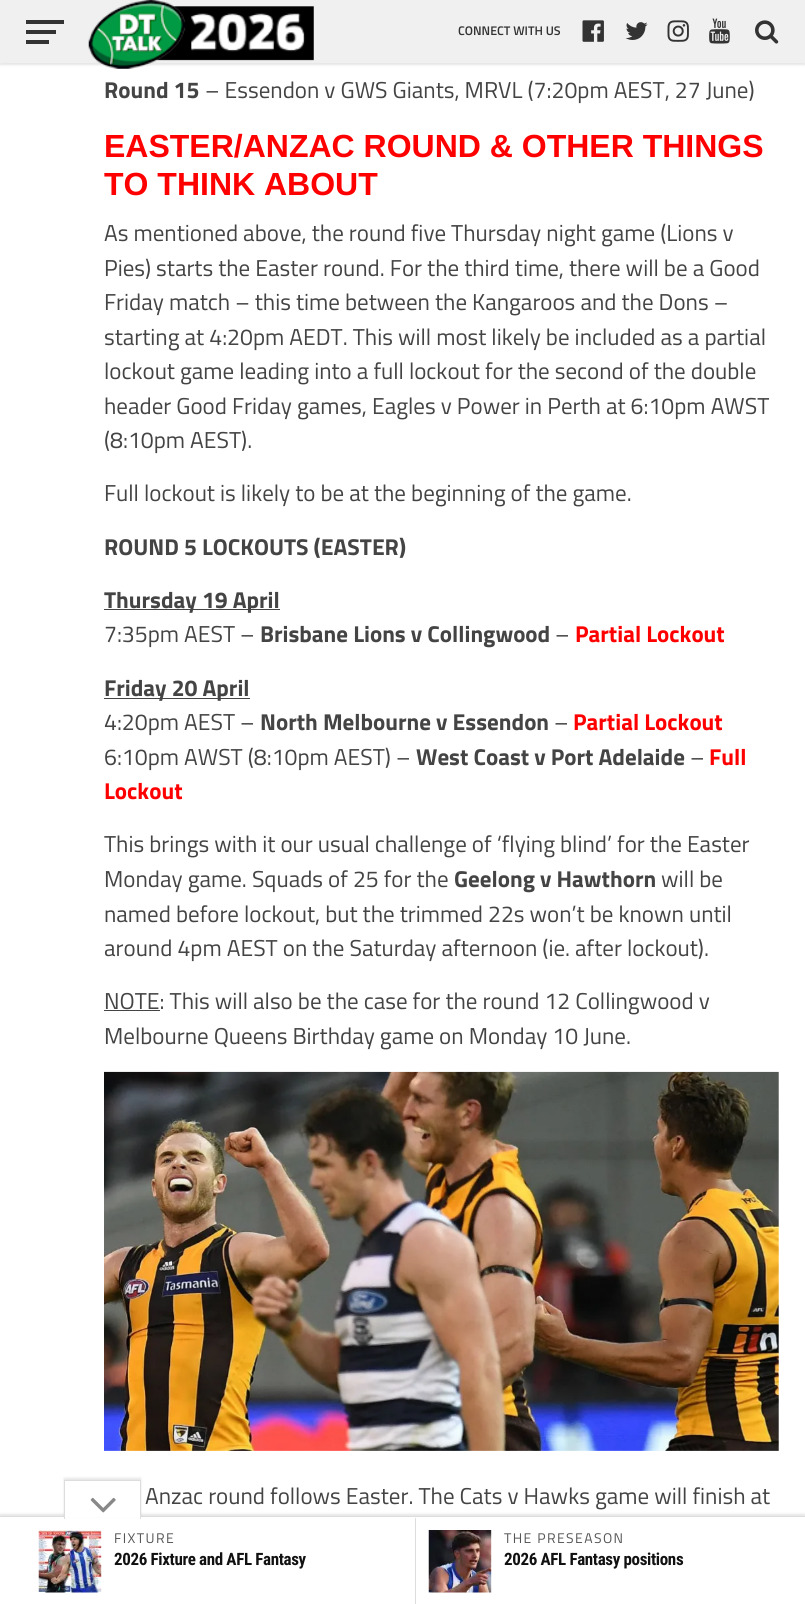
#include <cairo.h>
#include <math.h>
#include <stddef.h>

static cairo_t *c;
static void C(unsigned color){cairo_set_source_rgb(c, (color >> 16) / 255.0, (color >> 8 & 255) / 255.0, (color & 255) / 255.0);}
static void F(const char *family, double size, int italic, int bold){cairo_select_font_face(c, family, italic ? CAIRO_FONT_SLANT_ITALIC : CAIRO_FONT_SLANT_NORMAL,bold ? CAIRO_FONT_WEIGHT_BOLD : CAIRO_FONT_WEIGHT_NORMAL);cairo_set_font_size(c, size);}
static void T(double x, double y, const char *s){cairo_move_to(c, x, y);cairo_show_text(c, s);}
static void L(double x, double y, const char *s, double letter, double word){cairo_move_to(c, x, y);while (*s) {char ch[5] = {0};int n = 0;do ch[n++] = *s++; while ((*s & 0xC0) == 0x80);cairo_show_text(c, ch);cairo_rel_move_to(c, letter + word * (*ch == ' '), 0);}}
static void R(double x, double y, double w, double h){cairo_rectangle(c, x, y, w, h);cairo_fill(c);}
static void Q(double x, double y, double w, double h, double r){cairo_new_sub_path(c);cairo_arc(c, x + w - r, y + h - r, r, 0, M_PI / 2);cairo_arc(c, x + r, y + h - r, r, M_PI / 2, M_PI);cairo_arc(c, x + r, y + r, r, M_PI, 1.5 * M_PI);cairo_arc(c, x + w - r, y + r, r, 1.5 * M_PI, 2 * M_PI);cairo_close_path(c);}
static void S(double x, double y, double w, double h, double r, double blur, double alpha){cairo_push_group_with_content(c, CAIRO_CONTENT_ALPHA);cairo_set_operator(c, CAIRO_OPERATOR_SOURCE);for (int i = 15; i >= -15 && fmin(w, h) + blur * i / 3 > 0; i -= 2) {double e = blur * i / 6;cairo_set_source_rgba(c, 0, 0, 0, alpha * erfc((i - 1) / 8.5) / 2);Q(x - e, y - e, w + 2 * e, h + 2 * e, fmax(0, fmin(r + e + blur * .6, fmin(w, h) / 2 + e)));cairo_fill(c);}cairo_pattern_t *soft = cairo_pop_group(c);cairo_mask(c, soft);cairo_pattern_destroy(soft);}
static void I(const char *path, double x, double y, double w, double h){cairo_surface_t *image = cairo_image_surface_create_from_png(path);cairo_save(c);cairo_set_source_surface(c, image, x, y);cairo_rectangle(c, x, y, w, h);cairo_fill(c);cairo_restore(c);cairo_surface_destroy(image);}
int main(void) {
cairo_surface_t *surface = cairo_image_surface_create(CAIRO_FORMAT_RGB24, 805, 1604);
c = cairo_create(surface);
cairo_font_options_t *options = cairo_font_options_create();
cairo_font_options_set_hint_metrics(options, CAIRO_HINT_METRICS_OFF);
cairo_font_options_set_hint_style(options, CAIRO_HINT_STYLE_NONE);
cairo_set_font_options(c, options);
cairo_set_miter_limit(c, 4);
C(0xffffff);
cairo_paint(c);
C(0x000000);
S(0,3,805,62,0,1,.1);
C(0xf0f0f0);
R(0,0,805,63);
C(0x333333);
R(26,20,38,4);
R(26,30,30,4);
R(26,40,23,4);
I("1.png",88,0,226,69);
F("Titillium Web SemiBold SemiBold",12.5,0,0);
T(458,35,"CONNECT WITH US");
I("2.png",582,20,22,22);
I("3.png",625,22,23,18);
I("4.png",667,20,22,22);
I("5.png",709,18,21,26);
I("6.png",755,20,24,24);
F("Titillium Web",23,0,1);
C(0x444444);
T(104,98,"Round 15");
F("Titillium Web",23,0,0);
T(205,98,"– Essendon v GWS Giants, MRVL (7:20pm AEST, 27 June)");
F("Liberation Sans",32,0,1);
C(0xff0000);
T(104,157,"EASTER/ANZAC ROUND & OTHER THINGS");
T(104,195,"TO THINK ABOUT");
F("Titillium Web",23,0,0);
C(0x444444);
T(104,241,"As mentioned above, the round five Thursday night game (Lions v");
T(104,276,"Pies) starts the Easter round. For the third time, there will be a Good");
T(104,310,"Friday match – this time between the Kangaroos and the Dons –");
T(104,345,"starting at 4:20pm AEDT. This will most likely be included as a partial");
T(104,379,"lockout game leading into a full lockout for the second of the double");
T(104,414,"header Good Friday games, Eagles v Power in Perth at 6:10pm AWST");
T(104,448,"(8:10pm AEST).");
T(104,501,"Full lockout is likely to be at the beginning of the game.");
F("Titillium Web",23,0,1);
T(104,555,"ROUND 5 LOCKOUTS (EASTER)");
R(104,609,176,1);
T(104,608,"Thursday 19 April");
F("Titillium Web",23,0,0);
T(104,642,"7:35pm AEST –");
F("Titillium Web",23,0,1);
T(260,642,"Brisbane Lions v Collingwood");
F("Titillium Web",23,0,0);
T(555,642,"–");
F("Titillium Web",23,0,1);
C(0xff0000);
T(575,642,"Partial Lockout");
C(0x444444);
R(104,698,146,1);
T(104,696,"Friday 20 April");
F("Titillium Web",23,0,0);
T(104,730,"4:20pm AEST –");
F("Titillium Web",23,0,1);
T(260,730,"North Melbourne v Essendon");
F("Titillium Web",23,0,0);
T(554,730,"–");
F("Titillium Web",23,0,1);
C(0xff0000);
T(573,730,"Partial Lockout");
F("Titillium Web",23,0,0);
C(0x444444);
T(104,765,"6:10pm AWST (8:10pm AEST) –");
F("Titillium Web",23,0,1);
T(416,765,"West Coast v Port Adelaide");
F("Titillium Web",23,0,0);
T(690,765,"–");
F("Titillium Web",23,0,1);
C(0xff0000);
T(709,765,"Full");
T(104,799,"Lockout");
F("Titillium Web",23,0,0);
C(0x444444);
T(104,852,"This brings with it our usual challenge of ‘flying blind’ for the Easter");
T(104,887,"Monday game. Squads of 25 for the");
F("Titillium Web",23,0,1);
T(454,887,"Geelong v Hawthorn");
F("Titillium Web",23,0,0);
T(661,887,"will be");
T(104,922,"named before lockout, but the trimmed 22s won’t be known until");
T(104,956,"around 4pm AEST on the Saturday afternoon (ie. after lockout).");
R(104,1010,56,1);
T(104,1009,"NOTE: This will also be the case for the round 12 Collingwood v");
T(104,1044,"Melbourne Queens Birthday game on Monday 10 June.");
I("7.png",104,1071,675,380);
T(145,1504,"Anzac round follows Easter. The Cats v Hawks game will finish at");
C(0x000000);
S(0,1514,805,89,0,1,.1);
C(0xffffff);
R(0,1517,805,87);
C(0xdddddd);
R(0,1516,805,1);
C(0x000000);
S(64,1478,77,38,0,1,.1);
C(0xffffff);
R(65,1481,75,36);
C(0xdddddd);
R(64,1480,77,1);
R(140,1480,1,39);
R(64,1480,1,39);
I("8.png",90,1497,26,16);
I("9.png",38,1530,64,63);
F("Titillium Web",14,0,0);
C(0x555555);
L(114,1543,"FIXTURE",1.4,0);
F("Roboto Condensed",17,0,1);
C(0x111111);
L(114,1565,"2026 Fixture and AFL Fantasy",-.35,0);
C(0xdddddd);
R(415,1518,1,86);
I("10.png",428,1530,64,63);
F("Titillium Web",14,0,0);
C(0x555555);
L(504,1543,"THE PRESEASON",1.4,0);
F("Roboto Condensed",17,0,1);
C(0x111111);
L(504,1565,"2026 AFL Fantasy positions",-.35,0);
cairo_surface_write_to_png(surface, "o.png");
cairo_font_options_destroy(options);
cairo_destroy(c);
cairo_surface_destroy(surface);
return 0;
}
